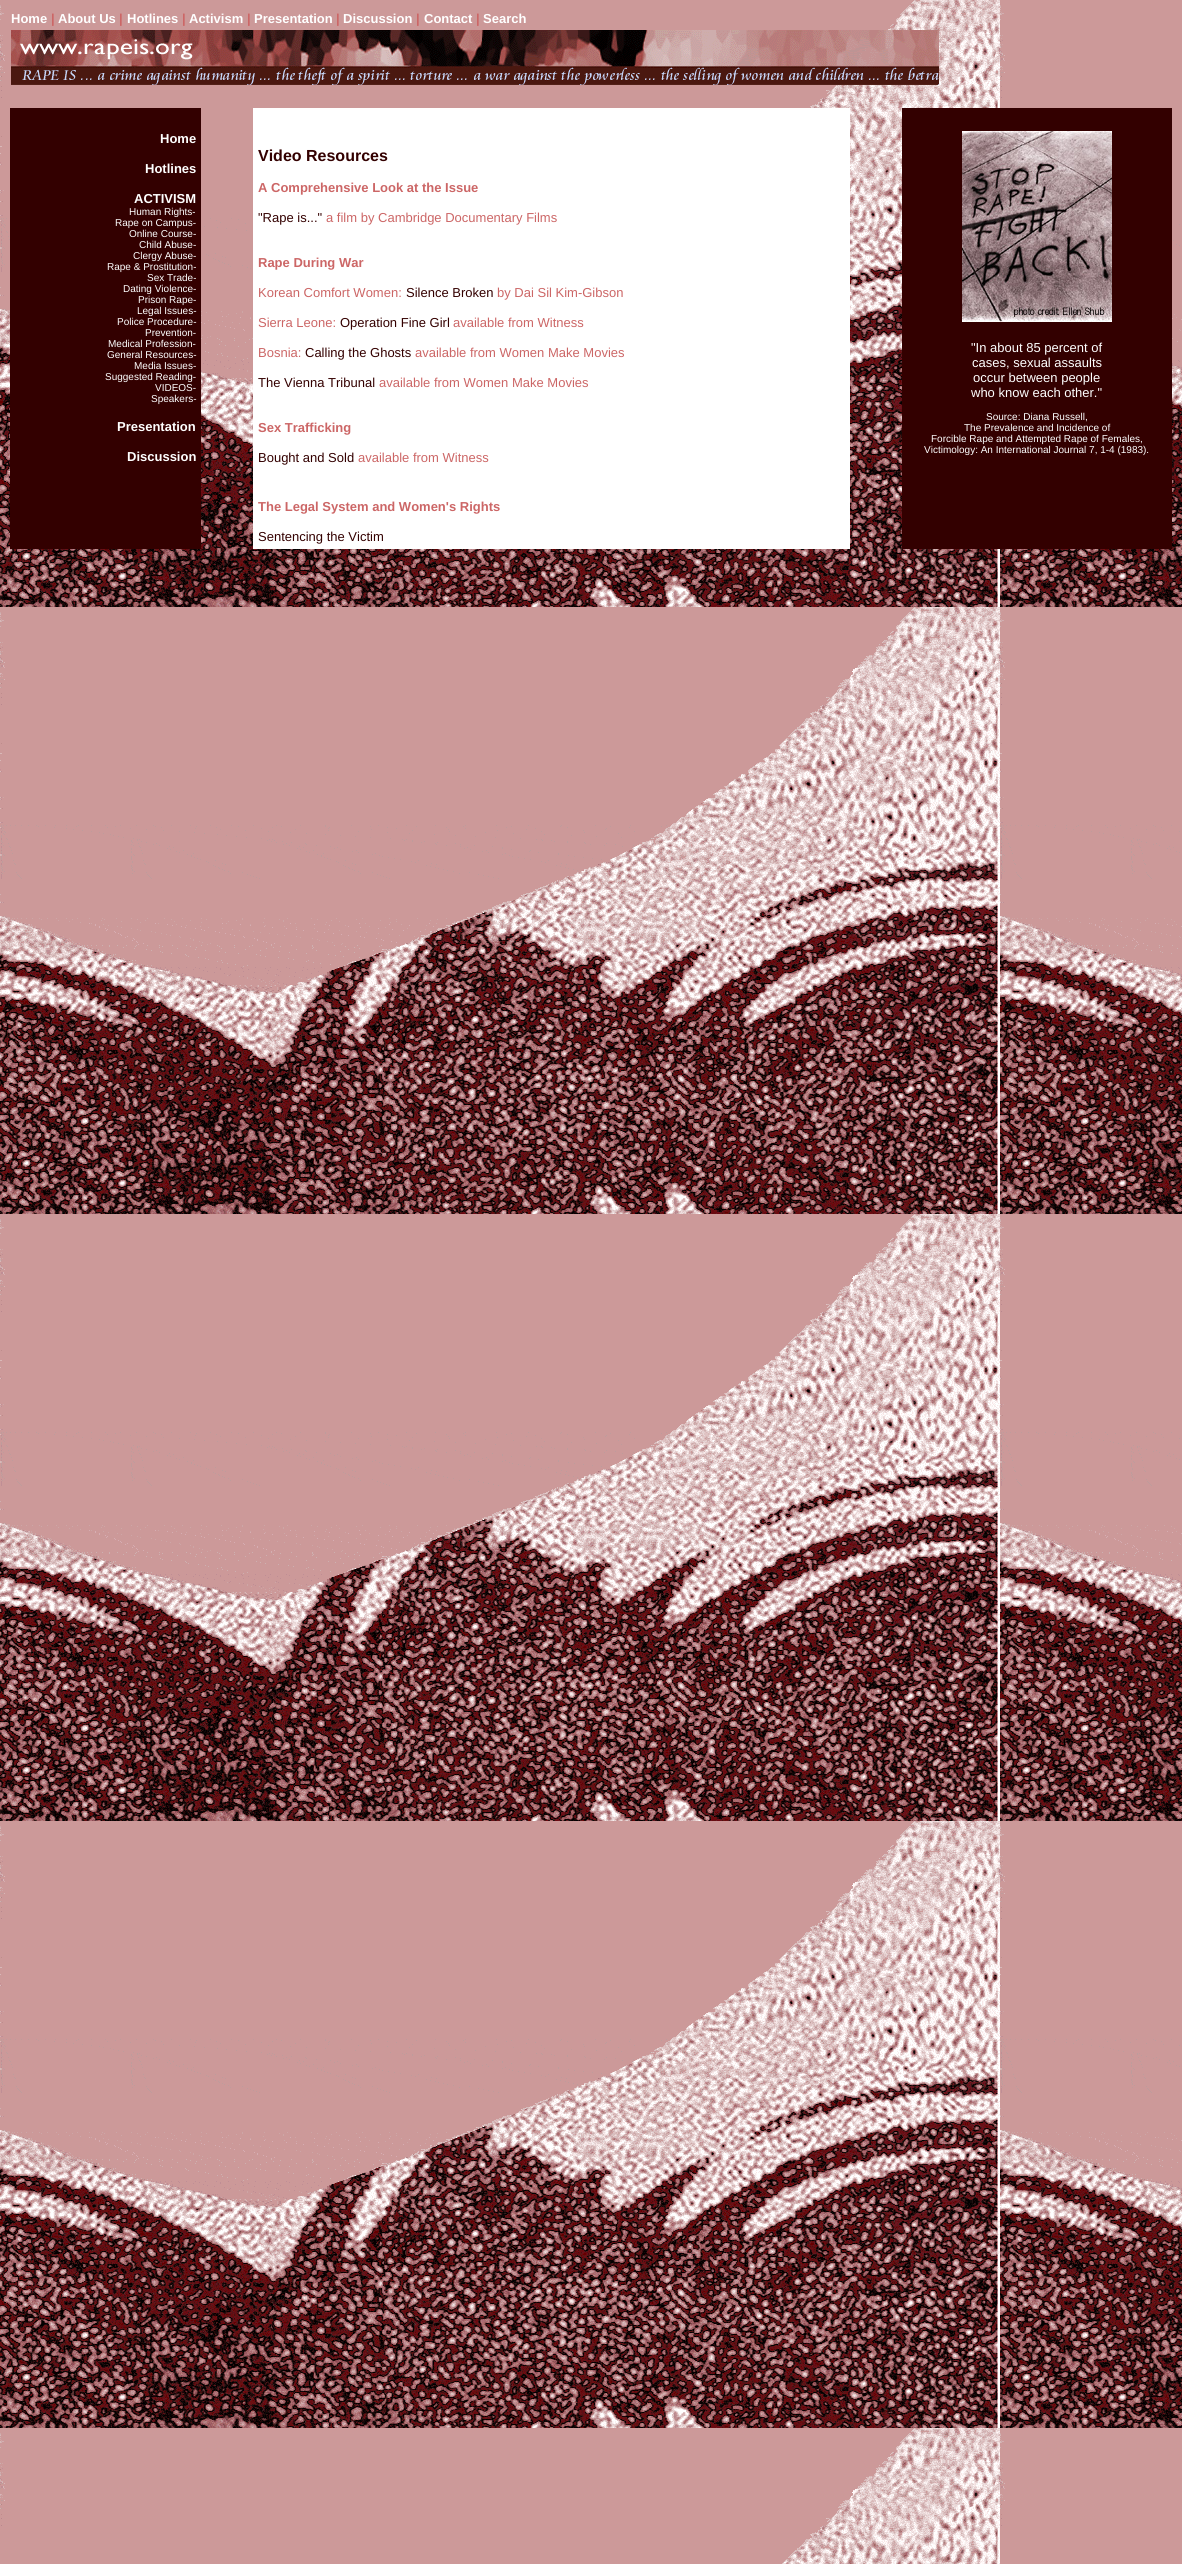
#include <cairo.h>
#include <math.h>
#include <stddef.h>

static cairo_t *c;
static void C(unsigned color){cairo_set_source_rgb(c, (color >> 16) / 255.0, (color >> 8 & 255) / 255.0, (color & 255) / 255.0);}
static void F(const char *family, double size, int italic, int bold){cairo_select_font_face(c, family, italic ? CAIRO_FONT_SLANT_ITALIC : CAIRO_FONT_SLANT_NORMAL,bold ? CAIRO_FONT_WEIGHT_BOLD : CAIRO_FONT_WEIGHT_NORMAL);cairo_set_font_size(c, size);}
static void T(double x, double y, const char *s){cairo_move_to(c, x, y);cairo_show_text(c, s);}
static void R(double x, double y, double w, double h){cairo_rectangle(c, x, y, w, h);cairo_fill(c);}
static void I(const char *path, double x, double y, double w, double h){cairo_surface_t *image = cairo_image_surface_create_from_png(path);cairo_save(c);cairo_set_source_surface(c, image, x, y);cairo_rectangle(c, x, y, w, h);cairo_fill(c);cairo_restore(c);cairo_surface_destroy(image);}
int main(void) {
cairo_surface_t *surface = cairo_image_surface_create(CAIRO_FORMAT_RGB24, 1182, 2564);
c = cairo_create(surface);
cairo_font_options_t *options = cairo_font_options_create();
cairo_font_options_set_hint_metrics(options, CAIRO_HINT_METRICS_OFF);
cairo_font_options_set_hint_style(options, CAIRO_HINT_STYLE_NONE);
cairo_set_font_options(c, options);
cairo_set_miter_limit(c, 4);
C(0xffffff);
cairo_paint(c);
I("1.png",0,0,1182,2564);
F("Liberation Sans",13,0,1);
C(0xffffff);
T(11,23,"Home");
C(0xcc6666);
T(51,23,"|");
C(0xffffff);
T(58,23,"About Us");
C(0xcc6666);
T(119,23,"|");
C(0xffffff);
T(127,23,"Hotlines");
C(0xcc6666);
T(182,23,"|");
C(0xffffff);
T(189,23,"Activism");
C(0xcc6666);
T(247,23,"|");
C(0xffffff);
T(254,23,"Presentation");
C(0xcc6666);
T(336,23,"|");
C(0xffffff);
T(343,23,"Discussion");
C(0xcc6666);
T(416,23,"|");
C(0xffffff);
T(424,23,"Contact");
C(0xcc6666);
T(476,23,"|");
C(0xffffff);
T(483,23,"Search");
I("2.png",11,30,928,55);
C(0x330000);
R(10,108,191,441);
C(0xffffff);
T(160,143,"Home");
T(145,173,"Hotlines");
T(134,203,"ACTIVISM");
F("Liberation Sans",10,0,0);
T(129,215,"Human Rights-");
T(115,226,"Rape on Campus-");
T(129,237,"Online Course-");
T(139,248,"Child Abuse-");
T(133,259,"Clergy Abuse-");
T(107,270,"Rape & Prostitution-");
T(147,281,"Sex Trade-");
T(123,292,"Dating Violence-");
T(138,303,"Prison Rape-");
T(137,314,"Legal Issues-");
T(117,325,"Police Procedure-");
T(145,336,"Prevention-");
T(108,347,"Medical Profession-");
T(107,358,"General Resources-");
T(134,369,"Media Issues-");
T(105,380,"Suggested Reading-");
T(155,391,"VIDEOS-");
T(151,402,"Speakers-");
F("Liberation Sans",13,0,1);
T(117,431,"Presentation");
T(127,461,"Discussion");
R(253,108,597,441);
F("Liberation Sans",16,0,1);
C(0x330000);
T(258,161,"Video Resources");
F("Liberation Sans",13,0,1);
C(0xcc6666);
T(258,192,"A Comprehensive Look at the Issue");
F("Liberation Sans",13,0,0);
C(0x330000);
T(258,222,"\"Rape is...\"");
C(0xcc6666);
T(326,222,"a film by Cambridge Documentary Films");
F("Liberation Sans",13,0,1);
T(258,267,"Rape During War");
F("Liberation Sans",13,0,0);
T(258,297,"Korean Comfort Women:");
C(0x330000);
T(406,297,"Silence Broken");
C(0xcc6666);
T(497,297,"by Dai Sil Kim-Gibson");
T(258,327,"Sierra Leone:");
C(0x330000);
T(340,327,"Operation Fine Girl");
C(0xcc6666);
T(453,327,"available from Witness");
T(258,357,"Bosnia:");
C(0x330000);
T(305,357,"Calling the Ghosts");
C(0xcc6666);
T(415,357,"available from Women Make Movies");
C(0x330000);
T(258,387,"The Vienna Tribunal");
C(0xcc6666);
T(379,387,"available from Women Make Movies");
F("Liberation Sans",13,0,1);
T(258,432,"Sex Trafficking");
F("Liberation Sans",13,0,0);
C(0x330000);
T(258,462,"Bought and Sold");
C(0xcc6666);
T(358,462,"available from Witness");
F("Liberation Sans",13,0,1);
T(258,511,"The Legal System and Women's Rights");
F("Liberation Sans",13,0,0);
C(0x330000);
T(258,541,"Sentencing the Victim");
R(902,108,270,441);
I("3.png",962,131,150,191);
C(0xffffff);
T(971,352,"\"In about 85 percent of");
T(972,367,"cases, sexual assaults");
T(973,382,"occur between people");
T(971,397,"who know each other.\"");
F("Liberation Sans",10,0,0);
T(986,420,"Source: Diana Russell,");
T(964,431,"The Prevalence and Incidence of");
T(931,442,"Forcible Rape and Attempted Rape of Females,");
T(924,453,"Victimology: An International Journal 7, 1-4 (1983).");
cairo_surface_write_to_png(surface, "o.png");
cairo_font_options_destroy(options);
cairo_destroy(c);
cairo_surface_destroy(surface);
return 0;
}
